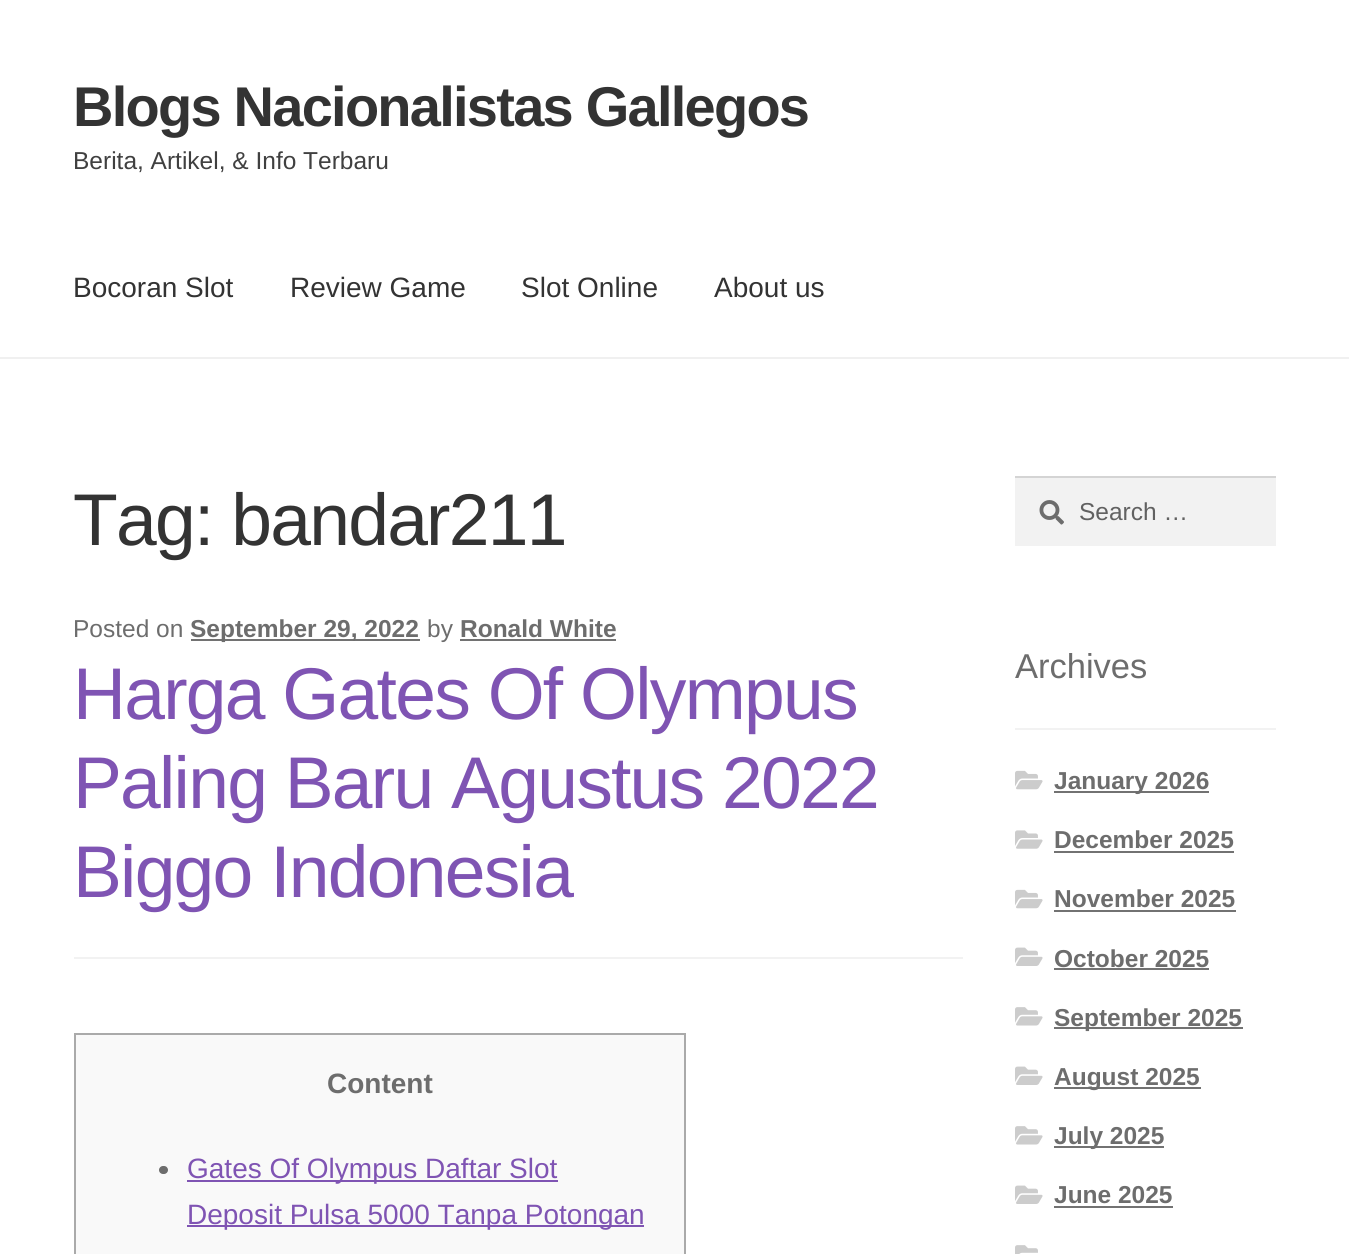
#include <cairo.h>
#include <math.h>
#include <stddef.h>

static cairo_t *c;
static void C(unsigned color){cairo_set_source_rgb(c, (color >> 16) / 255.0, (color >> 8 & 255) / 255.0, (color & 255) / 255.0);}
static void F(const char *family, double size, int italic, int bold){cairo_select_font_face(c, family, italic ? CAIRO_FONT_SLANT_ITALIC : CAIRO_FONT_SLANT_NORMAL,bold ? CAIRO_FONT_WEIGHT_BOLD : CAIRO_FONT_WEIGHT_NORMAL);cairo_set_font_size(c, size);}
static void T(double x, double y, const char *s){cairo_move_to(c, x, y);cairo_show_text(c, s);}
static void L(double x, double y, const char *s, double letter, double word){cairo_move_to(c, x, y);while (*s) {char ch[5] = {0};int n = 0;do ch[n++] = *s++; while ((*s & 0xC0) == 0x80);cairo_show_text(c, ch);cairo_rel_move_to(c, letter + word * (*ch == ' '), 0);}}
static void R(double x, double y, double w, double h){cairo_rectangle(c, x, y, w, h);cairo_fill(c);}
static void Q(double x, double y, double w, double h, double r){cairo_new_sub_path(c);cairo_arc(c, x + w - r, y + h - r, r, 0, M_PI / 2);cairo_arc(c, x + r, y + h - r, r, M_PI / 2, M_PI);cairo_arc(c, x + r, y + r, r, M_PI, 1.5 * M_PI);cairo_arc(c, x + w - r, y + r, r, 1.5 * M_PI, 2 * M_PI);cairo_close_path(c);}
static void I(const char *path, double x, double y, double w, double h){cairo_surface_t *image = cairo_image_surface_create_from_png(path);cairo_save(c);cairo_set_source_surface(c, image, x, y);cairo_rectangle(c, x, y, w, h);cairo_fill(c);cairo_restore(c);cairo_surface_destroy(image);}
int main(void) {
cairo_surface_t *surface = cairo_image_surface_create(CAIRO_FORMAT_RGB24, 1349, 1254);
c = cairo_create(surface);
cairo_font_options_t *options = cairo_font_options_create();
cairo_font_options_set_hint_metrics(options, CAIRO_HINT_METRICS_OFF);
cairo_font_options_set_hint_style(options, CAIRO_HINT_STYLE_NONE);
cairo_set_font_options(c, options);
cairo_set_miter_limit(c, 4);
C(0xffffff);
cairo_paint(c);
C(0xf0f0f0);
R(0,357,1349,2);
F("Liberation Sans",56,0,1);
C(0x333333);
L(73,126,"Blogs Nacionalistas Gallegos",-1.75,0);
F("Liberation Sans",24.5,0,0);
C(0x404040);
T(73,169,"Berita, Artikel, & Info Terbaru");
F("Liberation Sans",28,0,0);
C(0x333333);
T(73,297,"Bocoran Slot");
T(290,297,"Review Game");
T(521,297,"Slot Online");
T(714,297,"About us");
F("Liberation Sans",73.25,0,0);
L(73,545,"Tag: bandar211",-1.75,0);
C(0xf2f2f2);
R(74,957,889,2);
F("Liberation Sans",24.5,0,0);
C(0x6d6d6d);
T(73,637,"Posted on");
C(0x727272);
R(191,639,229,2);
F("Liberation Sans",24.5,0,1);
C(0x6d6d6d);
T(190,637,"September 29, 2022");
F("Liberation Sans",24.5,0,0);
T(427,637,"by");
F("Liberation Sans",24.5,0,1);
T(460,637,"Ronald White");
C(0x727272);
R(460,639,156,2);
F("Liberation Sans",73.25,0,0);
C(0x7f54b3);
L(73,719,"Harga Gates Of Olympus",-1.75,0);
L(73,808,"Paling Baru Agustus 2022",-1.75,0);
L(73,897,"Biggo Indonesia",-1.75,0);
C(0xf9f9f9);
cairo_rectangle(c,75,1034,610,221);
cairo_fill_preserve(c);
C(0xaaaaaa);
cairo_stroke(c);
F("Liberation Sans",28,0,1);
C(0x6d6d6d);
T(327,1093,"Content");
Q(159,1166,9,8,4);
cairo_fill(c);
C(0x7f54b3);
R(187,1180,371,2);
F("Liberation Sans",28,0,0);
T(187,1178,"Gates Of Olympus Daftar Slot");
R(187,1225,457,2);
T(187,1224,"Deposit Pulsa 5000 Tanpa Potongan");
C(0xf2f2f2);
R(1015,478,261,68);
I("1.png",1039,500,25,25);
C(0xd4d4d4);
R(1015,476,261,2);
F("Liberation Sans",24.5,0,0);
C(0x616161);
T(1079,520,"Search …");
C(0xf2f2f2);
R(1015,728,261,2);
F("Liberation Sans",34.5,0,0);
C(0x6d6d6d);
T(1015,678,"Archives");
I("2.png",1015,770,28,20);
C(0x727272);
R(1054,791,155,2);
F("Liberation Sans",24.5,0,1);
C(0x6d6d6d);
T(1054,789,"January 2026");
I("3.png",1015,830,28,19);
T(1054,848,"December 2025");
C(0x727272);
R(1054,851,180,2);
I("2.png",1015,889,28,20);
C(0x6d6d6d);
T(1054,907,"November 2025");
C(0x727272);
R(1054,910,182,2);
I("4.png",1015,947,28,19);
C(0x6d6d6d);
T(1054,967,"October 2025");
C(0x727272);
R(1054,968,155,2);
I("5.png",1015,1007,28,19);
R(1054,1027,189,2);
C(0x6d6d6d);
T(1054,1026,"September 2025");
I("4.png",1015,1066,28,19);
C(0x727272);
R(1054,1087,147,2);
C(0x6d6d6d);
T(1054,1085,"August 2025");
I("5.png",1015,1126,28,19);
C(0x727272);
R(1054,1146,110,2);
C(0x6d6d6d);
T(1054,1144,"July 2025");
I("4.png",1015,1185,28,19);
T(1054,1203,"June 2025");
C(0x727272);
R(1054,1206,119,2);
I("6.png",1015,1245,23,9);
cairo_surface_write_to_png(surface, "o.png");
cairo_font_options_destroy(options);
cairo_destroy(c);
cairo_surface_destroy(surface);
return 0;
}
